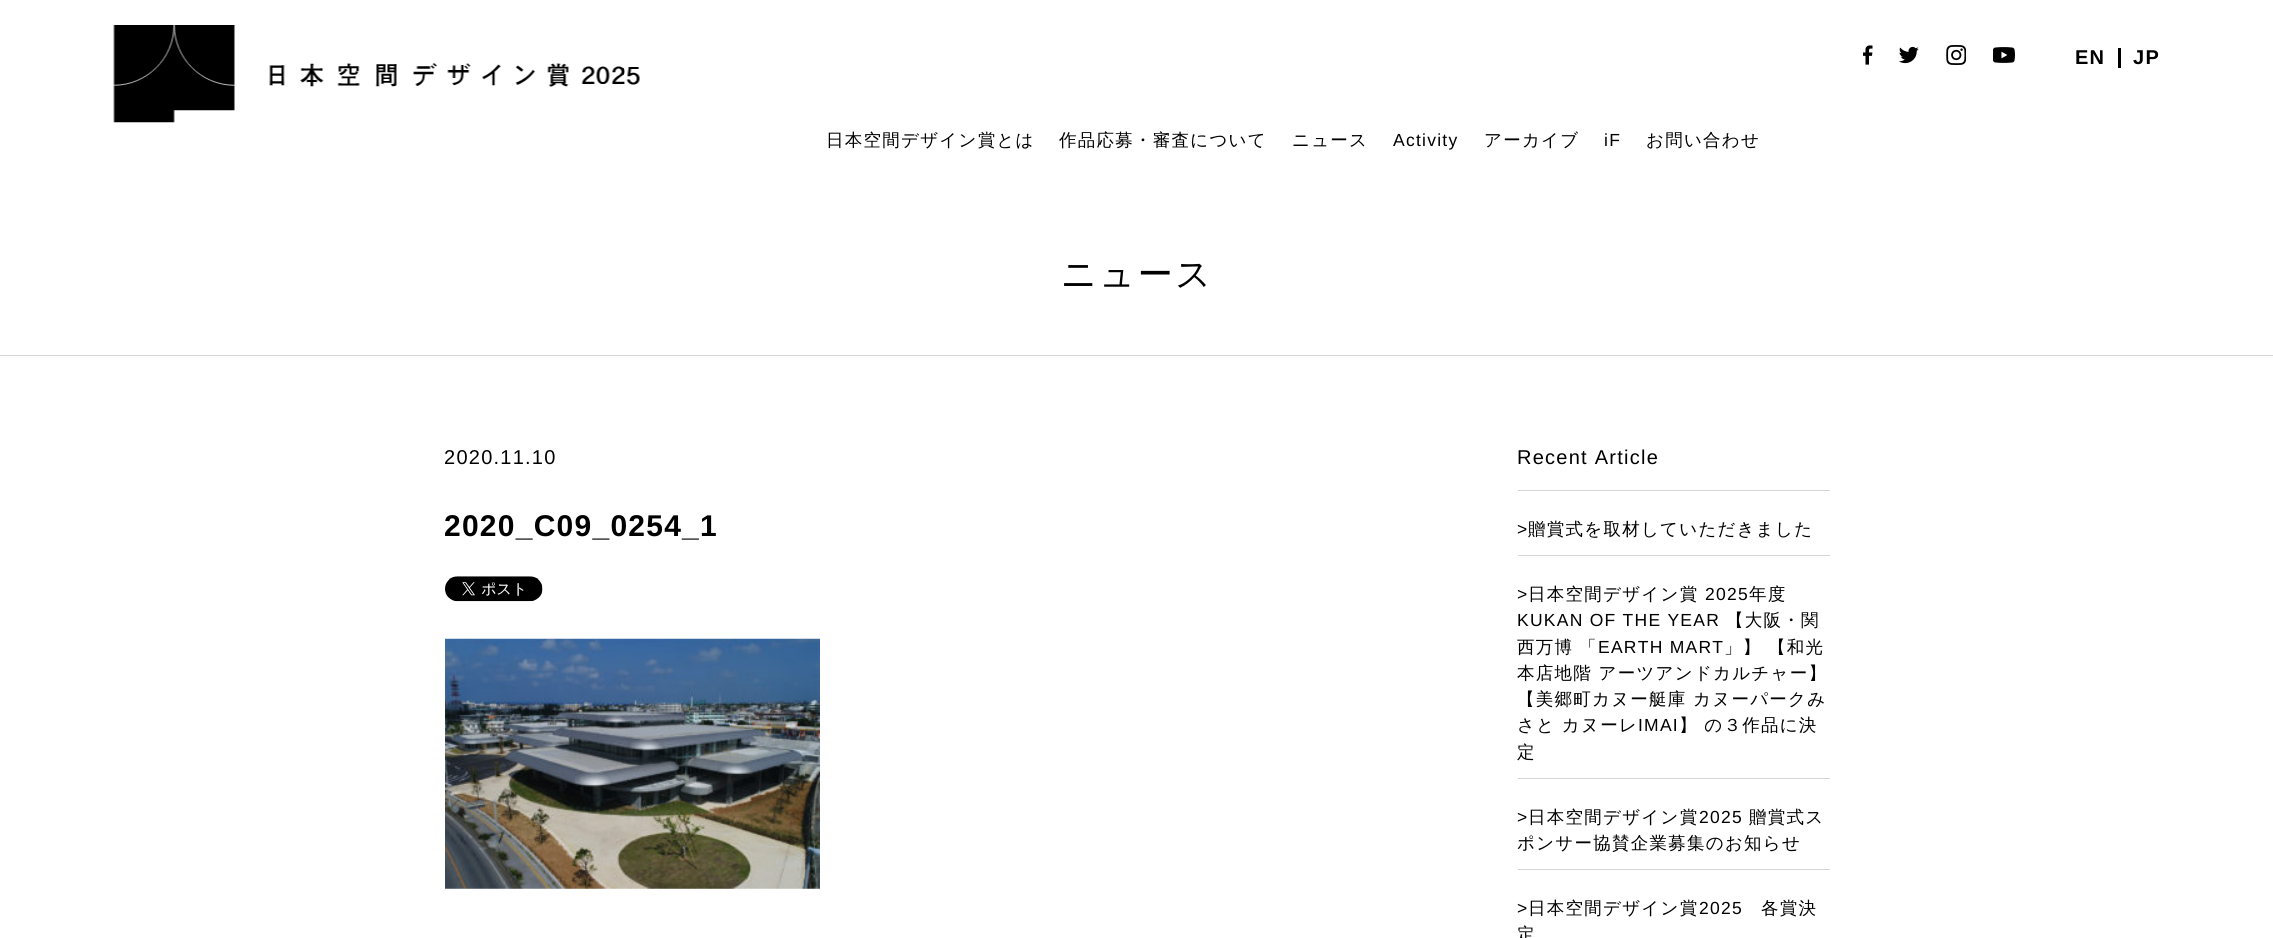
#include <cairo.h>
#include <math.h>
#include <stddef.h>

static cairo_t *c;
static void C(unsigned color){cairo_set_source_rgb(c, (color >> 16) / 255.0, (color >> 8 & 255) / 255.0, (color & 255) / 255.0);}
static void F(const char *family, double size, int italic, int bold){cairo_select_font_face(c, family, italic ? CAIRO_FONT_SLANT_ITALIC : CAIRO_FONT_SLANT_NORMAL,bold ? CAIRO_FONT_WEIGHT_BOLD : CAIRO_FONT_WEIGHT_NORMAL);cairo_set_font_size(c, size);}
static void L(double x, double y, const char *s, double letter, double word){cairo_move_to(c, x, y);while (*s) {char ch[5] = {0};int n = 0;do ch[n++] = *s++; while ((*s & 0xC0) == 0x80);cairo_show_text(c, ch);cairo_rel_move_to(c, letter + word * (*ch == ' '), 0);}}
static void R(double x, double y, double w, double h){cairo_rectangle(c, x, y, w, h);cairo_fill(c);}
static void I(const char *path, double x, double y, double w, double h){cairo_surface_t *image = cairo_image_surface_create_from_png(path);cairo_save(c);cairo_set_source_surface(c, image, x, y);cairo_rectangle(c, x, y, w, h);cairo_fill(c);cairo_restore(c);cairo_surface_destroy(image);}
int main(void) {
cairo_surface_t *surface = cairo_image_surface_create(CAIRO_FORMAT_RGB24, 2273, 938);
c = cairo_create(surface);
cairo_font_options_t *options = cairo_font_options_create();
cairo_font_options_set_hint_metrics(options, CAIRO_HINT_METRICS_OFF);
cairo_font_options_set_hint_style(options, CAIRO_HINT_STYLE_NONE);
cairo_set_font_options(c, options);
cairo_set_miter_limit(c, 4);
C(0xffffff);
cairo_paint(c);
I("1.png",113,25,527,98);
I("2.png",1863,45,10,20);
I("3.png",1899,46,20,18);
I("4.png",1946,45,20,20);
I("5.png",1993,47,22,16);
C(0x000000);
R(2118,48,3,20);
F("Liberation Sans",20,0,1);
L(2075,64,"EN",1.25,0);
L(2133,64,"JP",1.25,0);
F("WenQuanYi Zen Hei Medium",17.5,0,0);
L(826,146,"日本空間デザイン賞とは",1.25,0);
L(1059,146,"作品応募・審査について",1.25,0);
L(1292,146,"ニュース",1.25,0);
F("Liberation Sans",17.5,0,0);
L(1393,146,"Activity",1.25,0);
F("WenQuanYi Zen Hei Medium",17.5,0,0);
L(1484,146,"アーカイブ",1.25,0);
F("Liberation Sans",17.5,0,0);
L(1604,146,"iF",1.25,0);
F("WenQuanYi Zen Hei Medium",17.5,0,0);
L(1646,146,"お問い合わせ",1.25,0);
C(0xd5d5d5);
R(0,355,2273,1);
F("WenQuanYi Zen Hei Medium",35,0,0);
C(0x000000);
L(1061,286,"ニュース",2.5,0);
F("Liberation Sans",20,0,0);
L(444,464,"2020.11.10",1.25,0);
F("Liberation Sans",30,0,1);
L(444,536,"2020_C09_0254_1",1.25,0);
I("6.png",445,576,98,26);
I("7.png",445,638,375,251);
C(0xd5d5d5);
R(1518,490,312,1);
F("Liberation Sans",20,0,0);
C(0x000000);
L(1517,464,"Recent Article",1.25,0);
C(0xd5d5d5);
R(1518,555,312,1);
F("Liberation Sans",17.5,0,0);
C(0x000000);
L(1517,535,">",1.25,0);
F("WenQuanYi Zen Hei Medium",17.5,0,0);
L(1528,535,"贈賞式を取材していただきました",1.25,0);
C(0xd5d5d5);
R(1518,778,312,1);
F("Liberation Sans",17.5,0,0);
C(0x000000);
L(1517,600,">",1.25,0);
F("WenQuanYi Zen Hei Medium",17.5,0,0);
L(1528,600,"日本空間デザイン賞",1.25,0);
F("Liberation Sans",17.5,0,0);
L(1705,600,"2025",1.25,0);
F("WenQuanYi Zen Hei Medium",17.5,0,0);
L(1749,600,"年度",1.25,0);
F("Liberation Sans",17.5,0,0);
L(1517,626,"KUKAN OF THE YEAR",1.25,0);
F("WenQuanYi Zen Hei Medium",17.5,0,0);
L(1726,626,"【大阪・関",1.25,0);
L(1517,653,"西万博",1.25,0);
L(1579,653,"「",1.25,0);
F("Liberation Sans",17.5,0,0);
L(1598,653,"EARTH MART",1.25,0);
F("WenQuanYi Zen Hei Medium",17.5,0,0);
L(1724,653,"」】",1.25,0);
L(1768,653,"【和光",1.25,0);
L(1517,679,"本店地階 アーツアンドカルチャー】",1.25,0);
L(1517,705,"【美郷町カヌー艇庫 カヌーパークみ",1.25,0);
L(1517,731,"さと カヌーレ",1.25,0);
F("Liberation Sans",17.5,0,0);
L(1638,731,"IMAI",1.25,0);
F("WenQuanYi Zen Hei Medium",17.5,0,0);
L(1679,731,"】 の３作品に決",1.25,0);
L(1517,758,"定",1.25,0);
C(0xd5d5d5);
R(1518,869,312,1);
F("Liberation Sans",17.5,0,0);
C(0x000000);
L(1517,823,">",1.25,0);
F("WenQuanYi Zen Hei Medium",17.5,0,0);
L(1528,823,"日本空間デザイン賞",1.25,0);
F("Liberation Sans",17.5,0,0);
L(1699,823,"2025",1.25,0);
F("WenQuanYi Zen Hei Medium",17.5,0,0);
L(1749,823,"贈賞式ス",1.25,0);
L(1517,849,"ポンサー協賛企業募集のお知らせ",1.25,0);
F("Liberation Sans",17.5,0,0);
L(1517,914,">",1.25,0);
F("WenQuanYi Zen Hei Medium",17.5,0,0);
L(1528,914,"日本空間デザイン賞",1.25,0);
F("Liberation Sans",17.5,0,0);
L(1699,914,"2025",1.25,0);
F("WenQuanYi Zen Hei Medium",17.5,0,0);
L(1761,914,"各賞決",1.25,0);
L(1517,940,"定",1.25,0);
cairo_surface_write_to_png(surface, "o.png");
cairo_font_options_destroy(options);
cairo_destroy(c);
cairo_surface_destroy(surface);
return 0;
}
